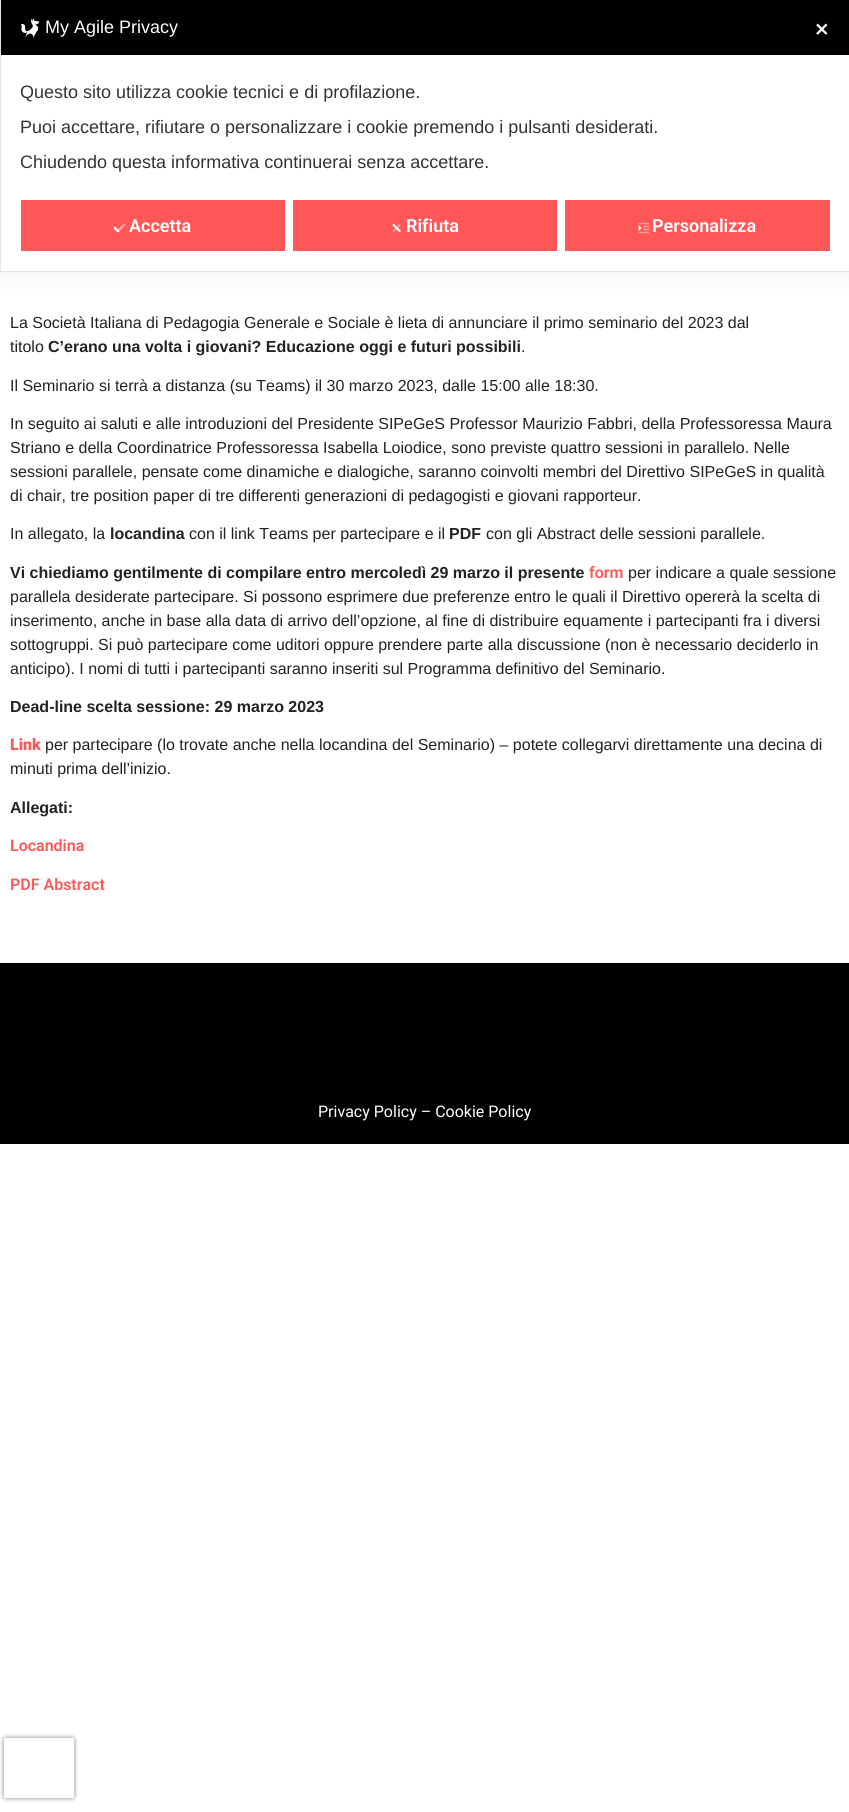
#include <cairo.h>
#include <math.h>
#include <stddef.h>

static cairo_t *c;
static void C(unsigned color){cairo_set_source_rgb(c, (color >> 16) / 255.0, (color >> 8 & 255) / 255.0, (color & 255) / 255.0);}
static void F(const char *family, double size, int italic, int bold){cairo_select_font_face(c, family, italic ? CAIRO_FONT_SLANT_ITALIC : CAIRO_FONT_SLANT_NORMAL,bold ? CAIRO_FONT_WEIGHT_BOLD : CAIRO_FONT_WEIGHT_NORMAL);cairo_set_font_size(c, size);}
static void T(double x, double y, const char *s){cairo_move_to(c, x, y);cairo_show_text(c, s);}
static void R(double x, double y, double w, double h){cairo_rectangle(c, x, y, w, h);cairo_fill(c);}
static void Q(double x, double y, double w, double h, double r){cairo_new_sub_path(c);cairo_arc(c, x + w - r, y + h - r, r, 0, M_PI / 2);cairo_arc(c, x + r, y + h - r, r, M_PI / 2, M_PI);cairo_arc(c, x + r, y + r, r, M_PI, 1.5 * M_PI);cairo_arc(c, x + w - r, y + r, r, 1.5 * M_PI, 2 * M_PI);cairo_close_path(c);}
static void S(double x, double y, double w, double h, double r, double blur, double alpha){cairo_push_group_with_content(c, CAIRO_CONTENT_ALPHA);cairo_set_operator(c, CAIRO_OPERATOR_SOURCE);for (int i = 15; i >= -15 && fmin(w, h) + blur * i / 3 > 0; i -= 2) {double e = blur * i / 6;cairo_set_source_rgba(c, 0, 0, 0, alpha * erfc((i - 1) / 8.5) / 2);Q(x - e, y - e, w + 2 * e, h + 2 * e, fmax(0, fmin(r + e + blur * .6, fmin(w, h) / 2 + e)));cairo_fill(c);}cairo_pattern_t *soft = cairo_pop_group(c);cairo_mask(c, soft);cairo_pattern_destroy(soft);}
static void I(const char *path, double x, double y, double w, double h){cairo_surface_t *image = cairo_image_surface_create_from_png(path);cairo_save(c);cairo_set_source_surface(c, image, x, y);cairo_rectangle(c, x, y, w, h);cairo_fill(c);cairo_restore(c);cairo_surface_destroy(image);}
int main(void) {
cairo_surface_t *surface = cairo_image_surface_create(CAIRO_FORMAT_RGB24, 849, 1812);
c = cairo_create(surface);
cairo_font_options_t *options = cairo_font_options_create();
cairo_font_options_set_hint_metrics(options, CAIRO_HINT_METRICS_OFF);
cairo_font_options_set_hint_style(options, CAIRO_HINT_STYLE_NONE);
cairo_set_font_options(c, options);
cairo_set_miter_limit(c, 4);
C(0xffffff);
cairo_paint(c);
cairo_rectangle(c,.5,-.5,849,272);
C(0xebebeb);
cairo_set_line_width(c,1);
cairo_stroke(c);
C(0x000000);
S(1,6,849,271,0,12,.05);
C(0xffffff);
R(1,55,848,216);
C(0x000000);
R(1,0,848,55);
I("1.png",21,18,18,20);
F("Liberation Sans",18,0,0);
C(0xffffff);
T(45,33,"My Agile Privacy");
F("DejaVu Sans",18,0,1);
T(814,36,"✕");
F("Liberation Sans",18,0,0);
C(0x333333);
T(20,98,"Questo sito utilizza cookie tecnici e di profilazione.");
T(20,133,"Puoi accettare, rifiutare o personalizzare i cookie premendo i pulsanti desiderati.");
T(20,168,"Chiudendo questa informativa continuerai senza accettare.");
C(0xff5757);
R(21,200,264,51);
I("2.png",114,223,12,10);
F("Roboto SemiBold",18,0,0);
C(0xffffff);
T(129,232,"Accetta");
C(0xff5757);
R(293,200,264,51);
I("3.png",392,223,9,10);
C(0xffffff);
T(406,232,"Rifiuta");
C(0xff5757);
R(565,200,265,51);
I("4.png",638,222,11,12);
C(0xffffff);
T(652,232,"Personalizza");
F("Liberation Sans",16,0,0);
C(0x222222);
T(10,328,"La Società Italiana di Pedagogia Generale e Sociale è lieta di annunciare il primo seminario del 2023 dal");
T(10,352,"titolo");
F("Liberation Sans",16,0,1);
T(48,352,"C’erano una volta i giovani? Educazione oggi e futuri possibili");
F("Liberation Sans",16,0,0);
T(521,352,".");
T(10,391,"Il Seminario si terrà a distanza (su Teams) il 30 marzo 2023, dalle 15:00 alle 18:30.");
T(10,429,"In seguito ai saluti e alle introduzioni del Presidente SIPeGeS Professor Maurizio Fabbri, della Professoressa Maura");
T(10,453,"Striano e della Coordinatrice Professoressa Isabella Loiodice, sono previste quattro sessioni in parallelo. Nelle");
T(10,477,"sessioni parallele, pensate come dinamiche e dialogiche, saranno coinvolti membri del Direttivo SIPeGeS in qualità");
T(10,501,"di chair, tre position paper di tre differenti generazioni di pedagogisti e giovani rapporteur.");
T(10,539,"In allegato, la");
F("Liberation Sans",16,0,1);
T(110,539,"locandina");
F("Liberation Sans",16,0,0);
T(189,539,"con il link Teams per partecipare e il");
F("Liberation Sans",16,0,1);
T(449,539,"PDF");
F("Liberation Sans",16,0,0);
T(486,539,"con gli Abstract delle sessioni parallele.");
F("Liberation Sans",16,0,1);
T(10,578,"Vi chiediamo gentilmente di compilare entro mercoledì 29 marzo il presente");
F("Roboto SemiBold",16,0,0);
C(0xff5757);
T(589,578,"form");
F("Liberation Sans",16,0,0);
C(0x222222);
T(628,578,"per indicare a quale sessione");
T(10,602,"parallela desiderate partecipare. Si possono esprimere due preferenze entro le quali il Direttivo opererà la scelta di");
T(10,626,"inserimento, anche in base alla data di arrivo dell’opzione, al fine di distribuire equamente i partecipanti fra i diversi");
T(10,650,"sottogruppi. Si può partecipare come uditori oppure prendere parte alla discussione (non è necessario deciderlo in");
T(10,674,"anticipo). I nomi di tutti i partecipanti saranno inseriti sul Programma definitivo del Seminario.");
F("Liberation Sans",16,0,1);
T(10,712,"Dead-line scelta sessione: 29 marzo 2023");
F("Roboto Black",16,0,0);
C(0xff5757);
T(10,750,"Link");
F("Liberation Sans",16,0,0);
C(0x222222);
T(45,750,"per partecipare (lo trovate anche nella locandina del Seminario) – potete collegarvi direttamente una decina di");
T(10,774,"minuti prima dell’inizio.");
F("Liberation Sans",16,0,1);
T(10,813,"Allegati:");
F("Roboto SemiBold",16,0,0);
C(0xff5757);
T(10,851,"Locandina");
T(10,890,"PDF Abstract");
C(0x000000);
R(0,963,849,181);
F("Roboto",16,0,0);
C(0xffffff);
T(318,1117,"Privacy Policy – Cookie Policy");
cairo_save(c);
cairo_set_fill_rule(c,CAIRO_FILL_RULE_EVEN_ODD);
cairo_new_path(c);
cairo_move_to(c,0,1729);
cairo_line_to(c,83,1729);
cairo_line_to(c,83,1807);
cairo_line_to(c,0,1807);
cairo_close_path(c);
cairo_move_to(c,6,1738);
cairo_line_to(c,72,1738);
cairo_curve_to(c,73,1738,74,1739,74,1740);
cairo_line_to(c,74,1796);
cairo_curve_to(c,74,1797,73,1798,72,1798);
cairo_line_to(c,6,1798);
cairo_curve_to(c,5,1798,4,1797,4,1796);
cairo_line_to(c,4,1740);
cairo_curve_to(c,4,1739,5,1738,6,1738);
cairo_close_path(c);
cairo_clip(c);
C(0x808080);
S(4,1738,70,60,2,2.5,1);
cairo_restore(c);
cairo_surface_write_to_png(surface, "o.png");
cairo_font_options_destroy(options);
cairo_destroy(c);
cairo_surface_destroy(surface);
return 0;
}
